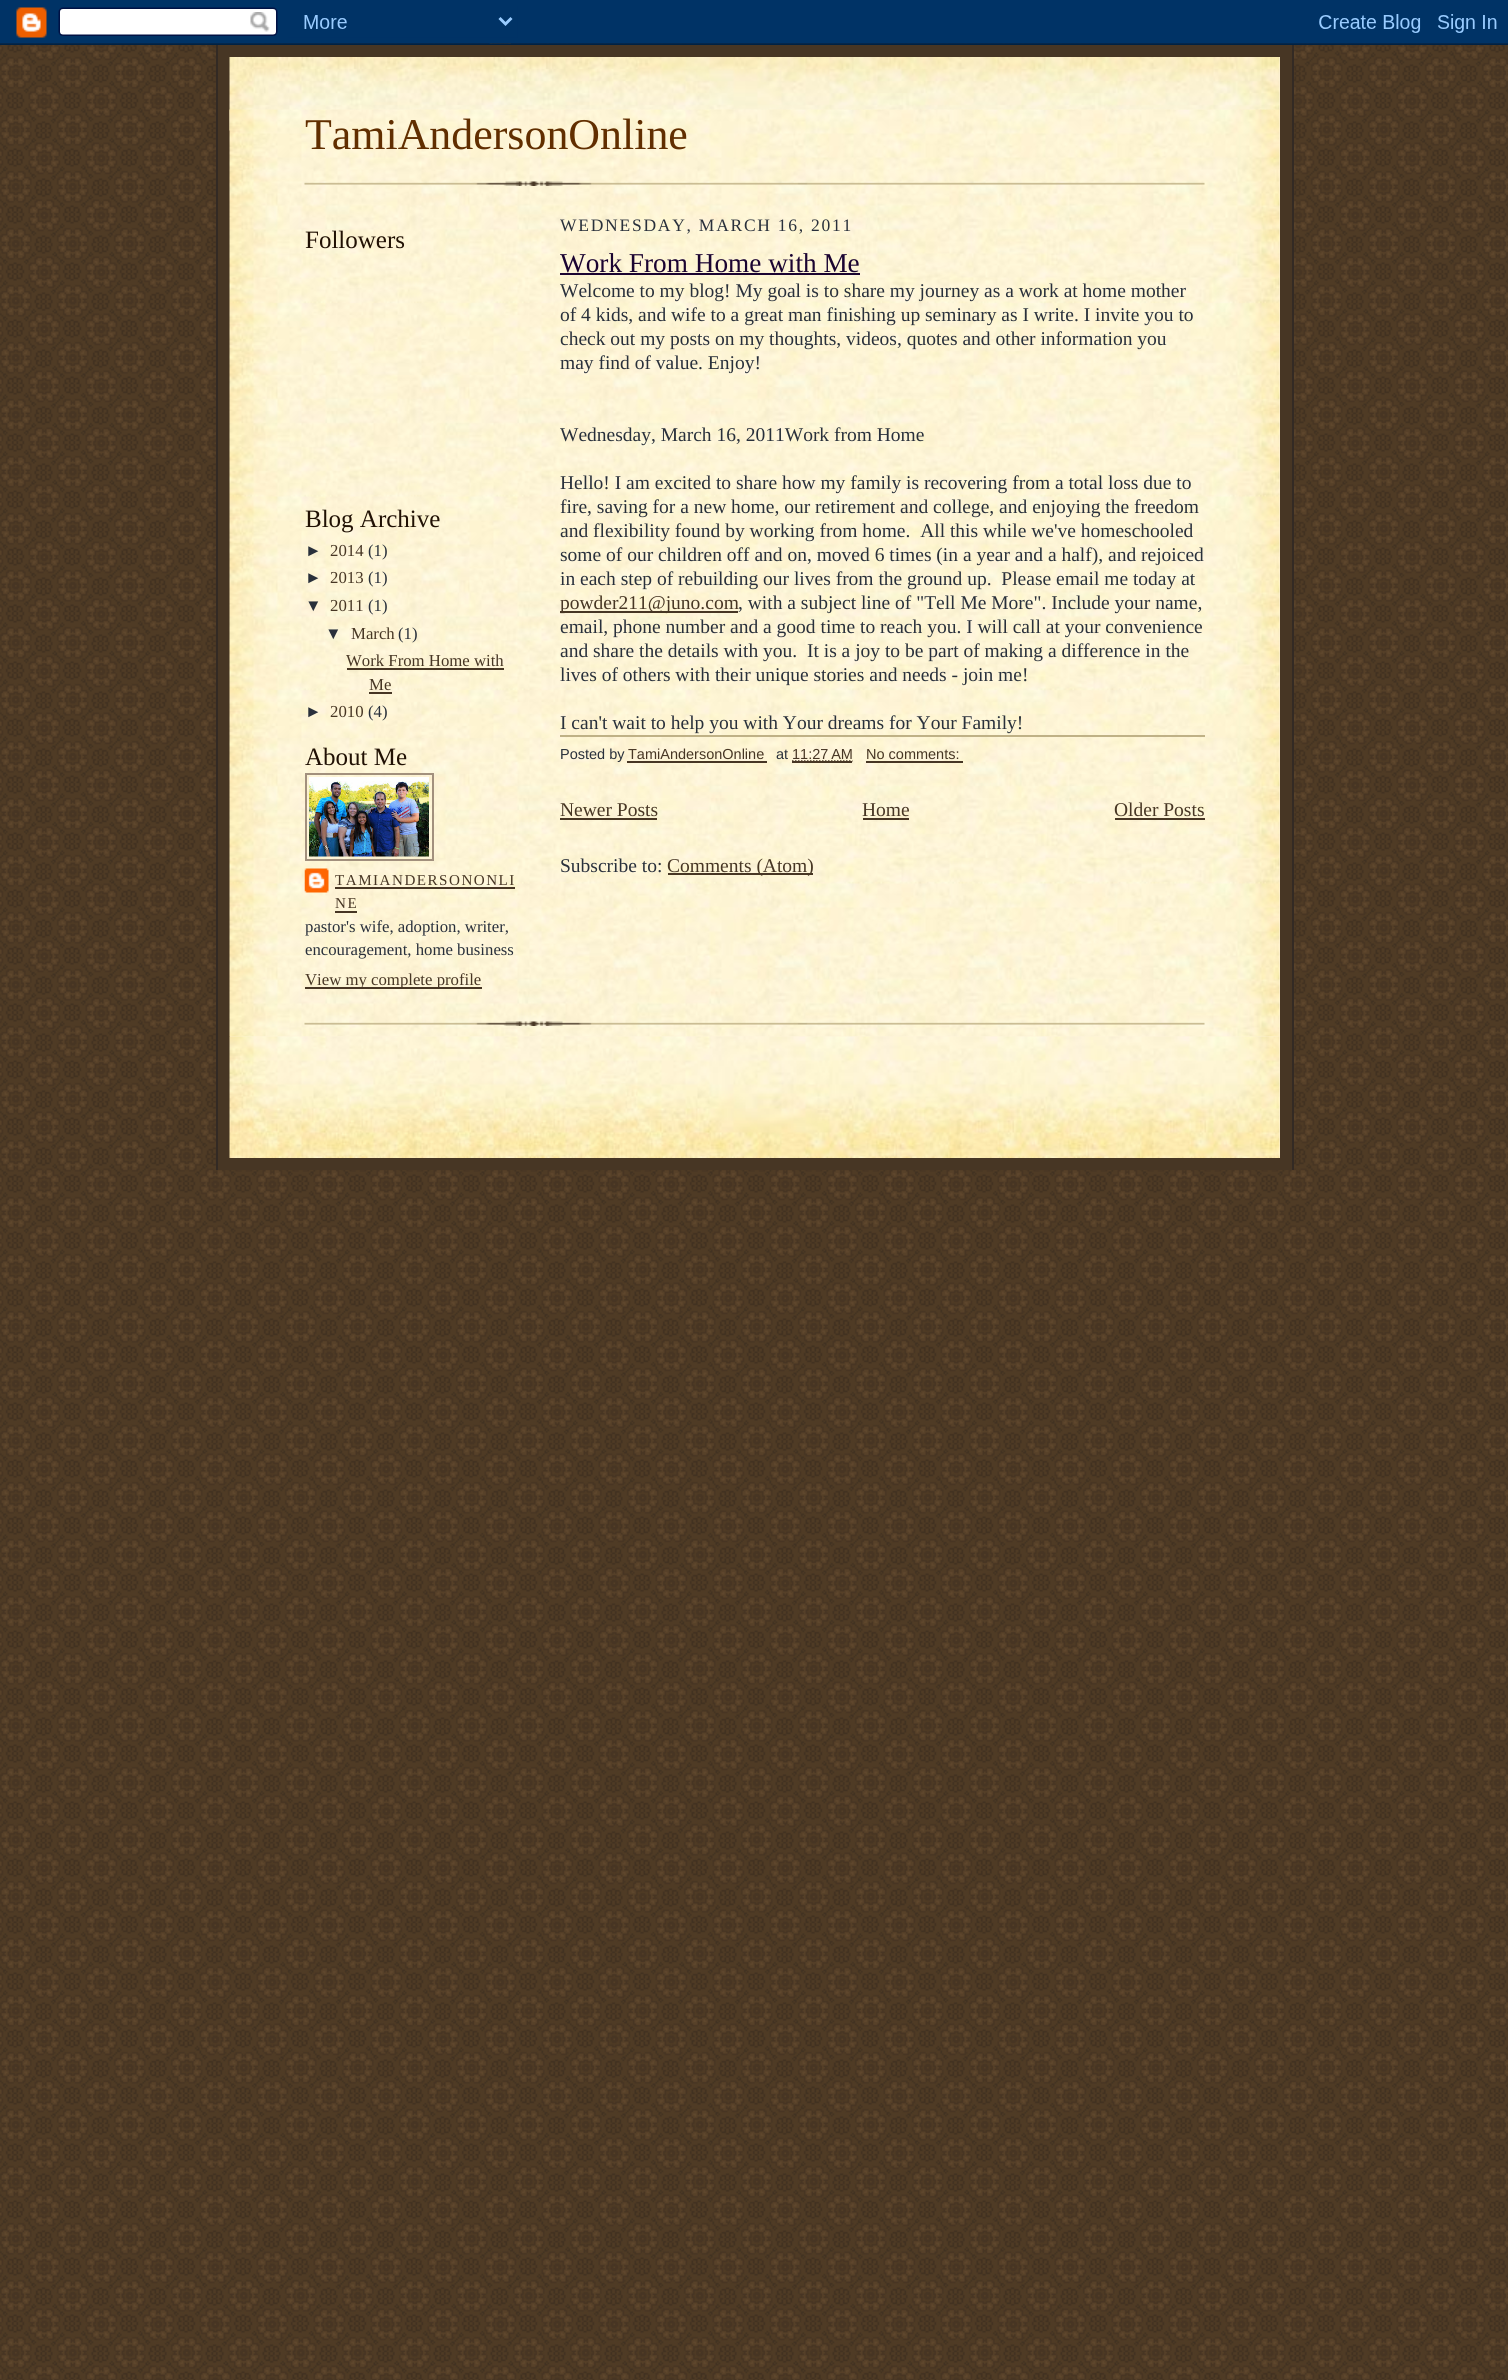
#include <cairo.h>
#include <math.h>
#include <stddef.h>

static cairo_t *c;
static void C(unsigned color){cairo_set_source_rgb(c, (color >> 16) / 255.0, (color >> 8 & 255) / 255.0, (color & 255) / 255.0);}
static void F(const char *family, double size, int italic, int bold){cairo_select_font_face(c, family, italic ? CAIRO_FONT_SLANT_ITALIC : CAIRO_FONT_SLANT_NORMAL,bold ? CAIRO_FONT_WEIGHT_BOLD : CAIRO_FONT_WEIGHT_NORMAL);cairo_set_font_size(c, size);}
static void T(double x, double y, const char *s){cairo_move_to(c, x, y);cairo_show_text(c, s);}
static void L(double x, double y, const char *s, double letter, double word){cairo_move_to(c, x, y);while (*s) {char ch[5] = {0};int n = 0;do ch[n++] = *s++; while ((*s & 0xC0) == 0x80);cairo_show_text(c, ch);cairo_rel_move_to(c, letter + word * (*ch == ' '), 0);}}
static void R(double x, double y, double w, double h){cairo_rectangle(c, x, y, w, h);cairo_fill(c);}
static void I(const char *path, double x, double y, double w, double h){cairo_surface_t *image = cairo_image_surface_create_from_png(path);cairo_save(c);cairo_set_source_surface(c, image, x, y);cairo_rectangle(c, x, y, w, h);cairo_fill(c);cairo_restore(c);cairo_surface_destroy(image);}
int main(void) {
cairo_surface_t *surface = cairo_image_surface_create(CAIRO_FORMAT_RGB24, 1508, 2380);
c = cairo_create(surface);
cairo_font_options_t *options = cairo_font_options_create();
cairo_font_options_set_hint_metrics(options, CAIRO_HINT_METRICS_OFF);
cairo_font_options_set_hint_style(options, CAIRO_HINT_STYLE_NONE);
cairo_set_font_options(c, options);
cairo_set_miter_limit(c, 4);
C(0xffffff);
cairo_paint(c);
I("1.png",0,43,1508,2337);
I("2.png",0,0,1508,45);
C(0x473624);
R(218,45,1074,1125);
C(0x332a24);
R(1292,45,2,1125);
R(216,45,2,1125);
C(0xfff3db);
R(1279,57,1,53);
I("3.png",229,57,1051,74);
R(230,110,1050,927);
I("4.png",229,109,1051,928);
I("5.png",304,181,901,5);
F("Liberation Serif",43.9,0,0);
C(0x612e00);
T(305,149,"TamiAndersonOnline");
F("Liberation Serif",25,0,0);
C(0x211104);
T(305,248,"Followers");
T(305,527,"Blog Archive");
F("Liberation Sans",16.75,0,0);
C(0x29303b);
T(305,556,"►");
F("Liberation Serif",16.75,0,0);
C(0x473624);
T(330,556,"2014");
C(0x29303b);
T(368,556,"(1)");
F("Liberation Sans",16.75,0,0);
T(305,583,"►");
F("Liberation Serif",16.75,0,0);
C(0x473624);
T(330,583,"2013");
C(0x29303b);
T(368,583,"(1)");
F("Liberation Sans",16.75,0,0);
T(305,611,"▼");
F("Liberation Serif",16.75,0,0);
C(0x473624);
T(330,611,"2011");
C(0x29303b);
T(368,611,"(1)");
F("Liberation Sans",16.75,0,0);
T(325,639,"▼");
F("Liberation Serif",16.75,0,0);
C(0x473624);
T(351,639,"March");
C(0x29303b);
T(398,639,"(1)");
C(0x473624);
T(346,666,"Work From Home with");
R(347,668,157,2);
T(369,690,"Me");
R(369,692,23,2);
F("Liberation Sans",16.75,0,0);
C(0x29303b);
T(305,717,"►");
F("Liberation Serif",16.75,0,0);
C(0x473624);
T(330,717,"2010");
C(0x29303b);
T(368,717,"(4)");
F("Liberation Serif",25,0,0);
C(0x211104);
T(305,765,"About Me");
cairo_rectangle(c,306,774,127,86);
C(0xa2907d);
cairo_stroke(c);
I("6.png",309,777,120,80);
I("7.png",304,868,25,25);
F("Liberation Serif",15.1,0,0);
C(0x473624);
L(335,885,"TAMIANDERSONONLI",1.5,0);
R(335,887,180,2);
L(335,908,"NE",1.5,0);
R(335,911,22,2);
F("Liberation Serif",16.75,0,0);
C(0x29303b);
T(305,932,"pastor's wife, adoption, writer,");
T(305,955,"encouragement, home business");
C(0x473624);
R(305,987,177,2);
T(305,985,"View my complete profile");
F("Liberation Serif",17.5,0,0);
C(0x29303b);
L(560,231,"WEDNESDAY, MARCH 16, 2011",1.75,0);
F("Liberation Serif",27.25,0,0);
C(0x1b0431);
T(560,272,"Work From Home with Me");
R(560,273,300,2);
F("Liberation Serif",19.5,0,0);
C(0x29303b);
T(560,297,"Welcome to my blog! My goal is to share my journey as a work at home mother");
T(560,321,"of 4 kids, and wife to a great man finishing up seminary as I write. I invite you to");
T(560,345,"check out my posts on my thoughts, videos, quotes and other information you");
T(560,369,"may find of value. Enjoy!");
T(560,441,"Wednesday, March 16, 2011Work from Home");
T(560,489,"Hello! I am excited to share how my family is recovering from a total loss due to");
T(560,513,"fire, saving for a new home, our retirement and college, and enjoying the freedom");
T(560,537,"and flexibility found by working from home.  All this while we've homeschooled");
T(560,561,"some of our children off and on, moved 6 times (in a year and a half), and rejoiced");
T(560,585,"in each step of rebuilding our lives from the ground up.  Please email me today at");
C(0x473624);
R(560,611,178,2);
T(560,609,"powder211@juno.com");
C(0x29303b);
T(738,609,", with a subject line of \"Tell Me More\". Include your name,");
T(560,633,"email, phone number and a good time to reach you. I will call at your convenience");
T(560,657,"and share the details with you.  It is a joy to be part of making a difference in the");
T(560,681,"lives of others with their unique stories and needs - join me!");
T(560,729,"I can't wait to help you with Your dreams for Your Family!");
C(0xbfb186);
R(560,735,645,2);
F("Liberation Sans",14.5,0,0);
C(0x29303b);
T(560,759,"Posted by");
C(0x473624);
T(628,759,"TamiAndersonOnline");
R(627,761,140,2);
C(0x29303b);
T(776,759,"at");
C(0x473624);
T(792,759,"11:27 AM");
cairo_new_path(c);
cairo_move_to(c,792,761);
cairo_line_to(c,852.5,761);
cairo_set_line_width(c,1.5);
cairo_set_dash(c,(double[]){1.5,1.5},2,0);
cairo_stroke(c);
R(792,761,60,2);
T(866,759,"No comments:");
R(866,761,97,2);
F("Liberation Serif",19.5,0,0);
T(560,816,"Newer Posts");
R(560,818,97,2);
T(862,816,"Home");
R(863,818,46,2);
T(1114,816,"Older Posts");
R(1115,818,90,2);
C(0x29303b);
T(560,872,"Subscribe to:");
C(0x473624);
R(668,873,145,2);
T(667,872,"Comments (Atom)");
I("8.png",304,1021,901,5);
C(0xfff3db);
R(1279,1037,1,121);
I("9.png",229,1036,1051,122);
cairo_surface_write_to_png(surface, "o.png");
cairo_font_options_destroy(options);
cairo_destroy(c);
cairo_surface_destroy(surface);
return 0;
}
